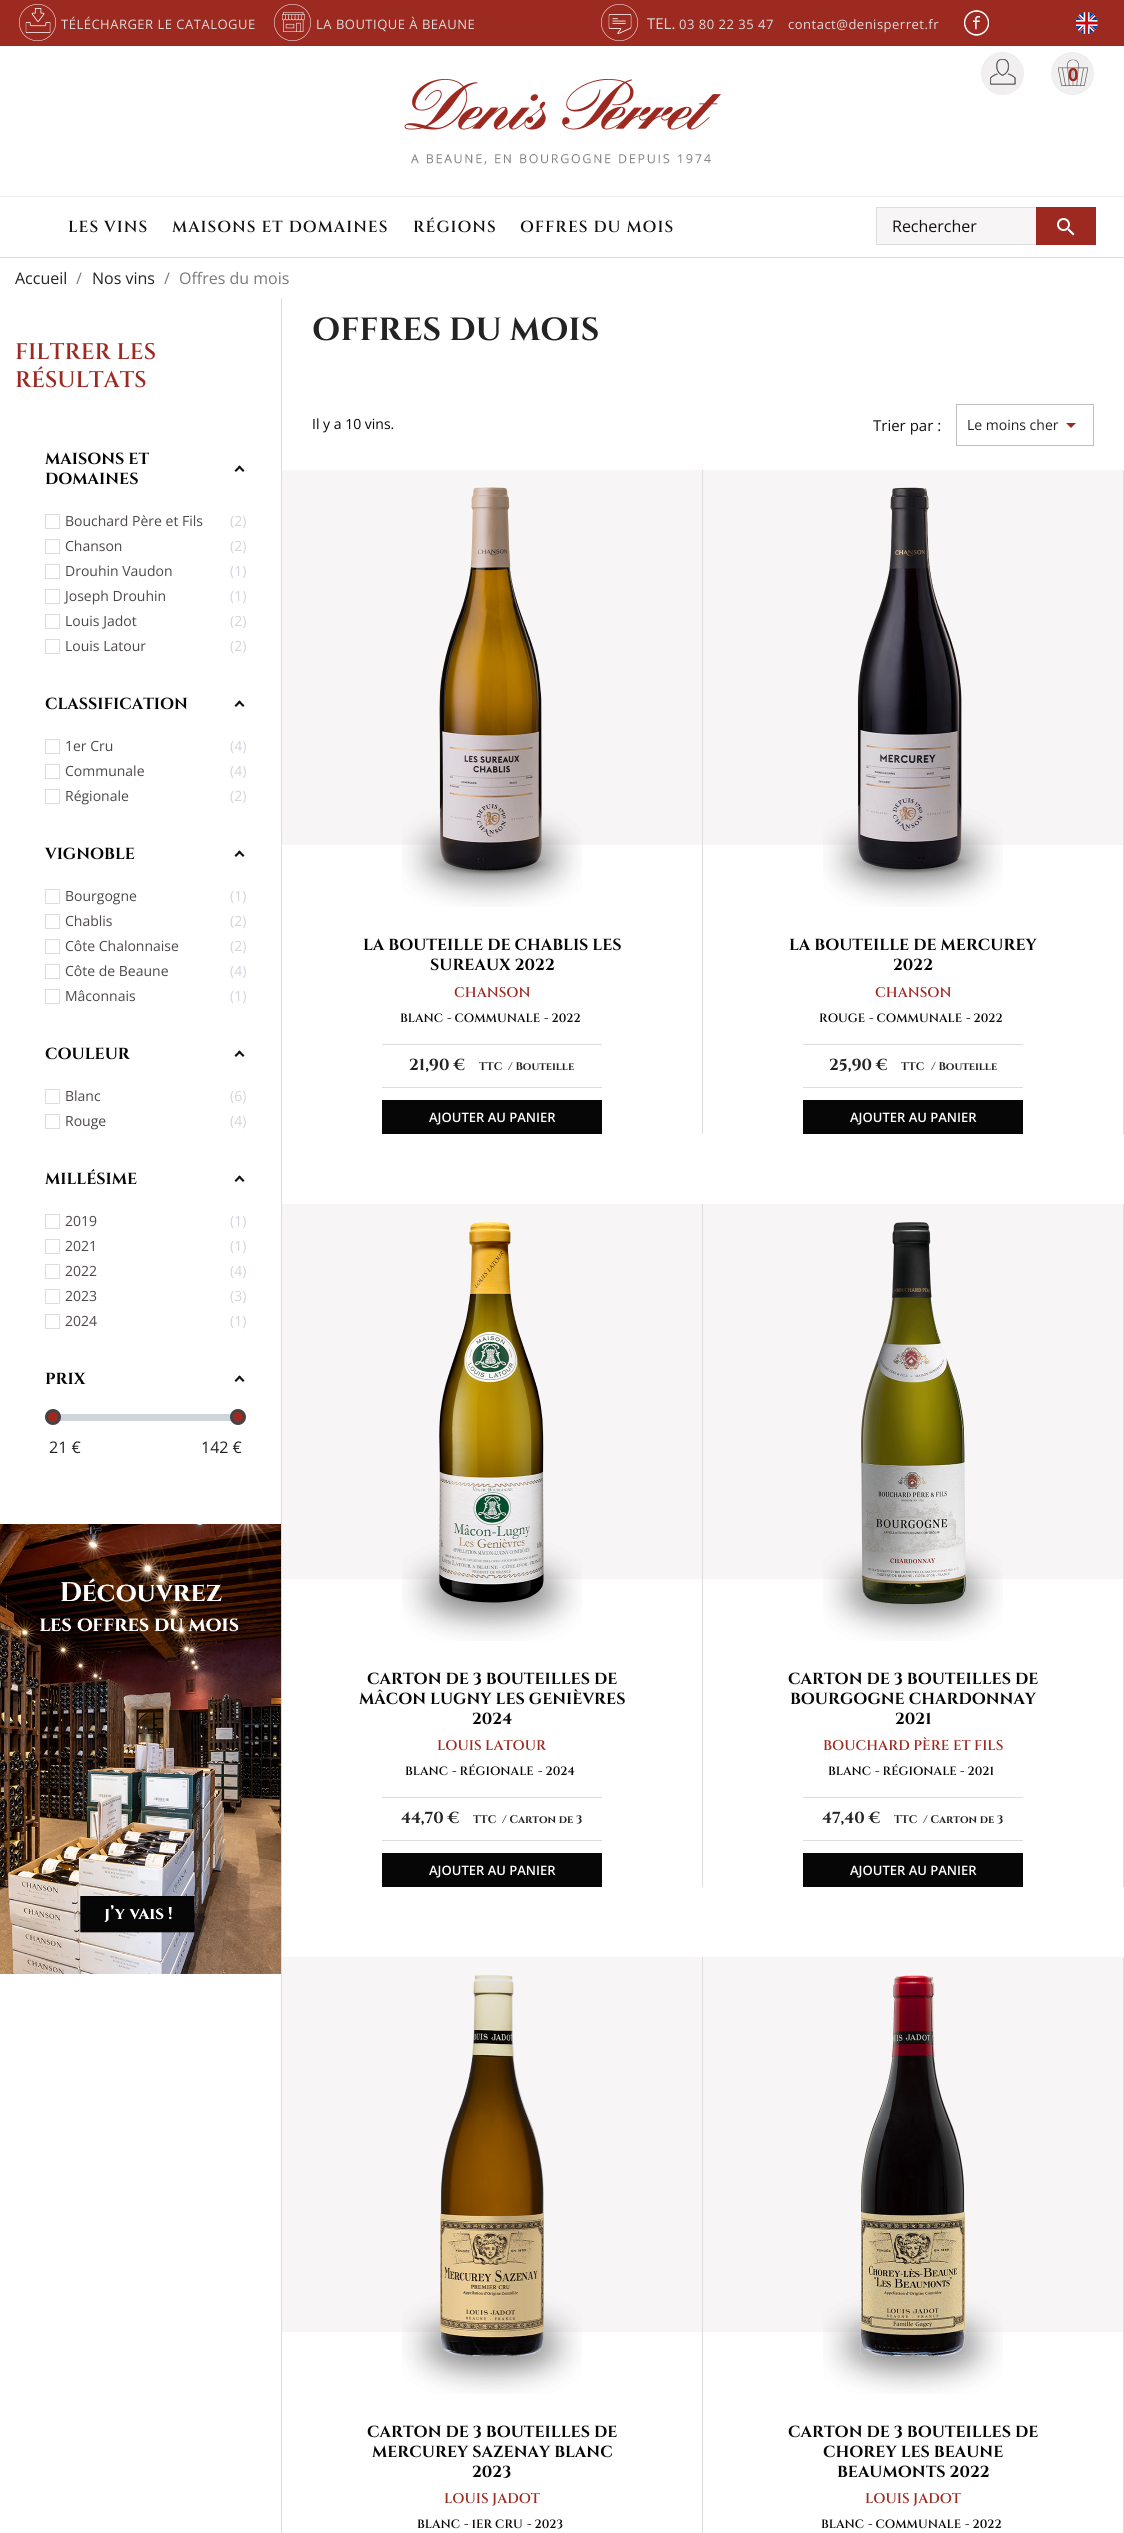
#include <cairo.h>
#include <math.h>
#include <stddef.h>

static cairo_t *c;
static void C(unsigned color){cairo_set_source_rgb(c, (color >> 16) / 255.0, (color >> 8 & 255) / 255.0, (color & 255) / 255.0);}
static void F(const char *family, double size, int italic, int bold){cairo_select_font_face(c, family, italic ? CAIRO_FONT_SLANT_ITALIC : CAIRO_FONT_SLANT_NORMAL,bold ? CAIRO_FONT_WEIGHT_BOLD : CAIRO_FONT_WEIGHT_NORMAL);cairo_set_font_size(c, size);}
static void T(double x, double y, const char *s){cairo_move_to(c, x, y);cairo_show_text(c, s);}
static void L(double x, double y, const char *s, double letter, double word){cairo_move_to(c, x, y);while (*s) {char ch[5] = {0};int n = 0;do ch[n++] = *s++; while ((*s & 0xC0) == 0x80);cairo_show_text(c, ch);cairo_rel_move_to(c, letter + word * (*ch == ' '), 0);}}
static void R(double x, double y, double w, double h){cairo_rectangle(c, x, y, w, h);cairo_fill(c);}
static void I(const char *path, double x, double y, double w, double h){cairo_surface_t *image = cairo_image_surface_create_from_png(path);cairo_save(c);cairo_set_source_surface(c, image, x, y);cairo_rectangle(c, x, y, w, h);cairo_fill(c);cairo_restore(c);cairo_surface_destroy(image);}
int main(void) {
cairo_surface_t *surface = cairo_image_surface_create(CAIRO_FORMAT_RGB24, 1124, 2533);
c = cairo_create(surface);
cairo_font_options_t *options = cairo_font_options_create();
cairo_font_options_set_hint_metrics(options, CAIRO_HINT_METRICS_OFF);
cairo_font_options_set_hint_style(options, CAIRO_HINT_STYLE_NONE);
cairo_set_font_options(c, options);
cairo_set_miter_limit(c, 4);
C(0xffffff);
cairo_paint(c);
C(0xdddddd);
R(0,257,1124,1);
C(0x9d2a21);
R(0,0,1124,46);
I("1.png",19,4,37,37);
F("Open Sans",13,0,0);
C(0xdddddd);
L(61,29,"TÉLÉCHARGER LE CATALOGUE",.5,0);
I("2.png",274,4,37,37);
L(316,29,"LA BOUTIQUE À BEAUNE",.5,0);
I("3.png",601,4,37,37);
F("Open Sans",15,0,0);
T(647,29,"TEL.");
F("Open Sans",13,0,0);
L(679,29,"03 80 22 35 47",.5,0);
L(788,29,"contact@denisperret.fr",.5,0);
I("4.png",964,10,25,26);
I("5.png",1076,12,22,22);
C(0xeeeeee);
R(0,196,1124,1);
I("6.png",981,52,43,43);
I("7.png",1051,52,43,43);
F("Open Sans",18,0,1);
C(0x9d2921);
T(1068,81,"0");
I("8.png",404,79,317,86);
F("Cinzel SemiBold",16,0,0);
C(0x111111);
L(68,232,"LES VINS",1,0);
L(172,232,"MAISONS ET DOMAINES",1,0);
L(413,232,"RÉGIONS",1,0);
L(520,232,"OFFRES DU MOIS",1,0);
C(0xf7f5f5);
R(877,208,159,36);
cairo_rectangle(c,876.5,207.5,219,37);
C(0xdddddd);
cairo_set_line_width(c,1);
cairo_stroke(c);
F("Open Sans",16,0,0);
C(0x111111);
T(892,232,"Rechercher");
C(0x9d2921);
R(1036,207,60,38);
I("9.png",1057,218,18,18);
C(0x232323);
T(15,284,"Accueil");
C(0x7a7a7a);
T(76,284,"/");
C(0x232323);
T(92,284,"Nos vins");
C(0x7a7a7a);
T(164,284,"/");
T(179,284,"Offres du mois");
F("Cinzel SemiBold",22.5,0,0);
C(0x9d2921);
T(15,359,"FILTRER LES");
T(15,387,"RÉSULTATS");
F("Cinzel",16,0,1);
C(0x060606);
T(45,464,"MAISONS ET");
C(0x111111);
cairo_new_path(c);
cairo_move_to(c,239.5,465.5);
cairo_line_to(c,244.5,470.5);
cairo_line_to(c,243,472);
cairo_line_to(c,238,467);
cairo_close_path(c);
cairo_fill(c);
cairo_new_path(c);
cairo_move_to(c,239.5,465.5);
cairo_line_to(c,241,467);
cairo_line_to(c,236,472);
cairo_line_to(c,234.5,470.5);
cairo_close_path(c);
cairo_fill(c);
C(0x060606);
T(45,484,"DOMAINES");
cairo_rectangle(c,45.5,514.5,14,14);
C(0xdddddd);
cairo_stroke(c);
F("Open Sans",14,0,0);
C(0x4d4848);
T(65,526,"Bouchard Père et Fils");
C(0xd0d5db);
T(230,526,"(2)");
cairo_rectangle(c,45.5,539.5,14,14);
C(0xdddddd);
cairo_stroke(c);
C(0x4d4848);
T(65,551,"Chanson");
C(0xd0d5db);
T(230,551,"(2)");
cairo_rectangle(c,45.5,564.5,14,14);
C(0xdddddd);
cairo_stroke(c);
C(0x4d4848);
T(65,576,"Drouhin Vaudon");
C(0xd0d5db);
T(230,576,"(1)");
cairo_rectangle(c,45.5,589.5,14,14);
C(0xdddddd);
cairo_stroke(c);
C(0x4d4848);
T(65,601,"Joseph Drouhin");
C(0xd0d5db);
T(230,601,"(1)");
cairo_rectangle(c,45.5,614.5,14,14);
C(0xdddddd);
cairo_stroke(c);
C(0x4d4848);
T(65,626,"Louis Jadot");
C(0xd0d5db);
T(230,626,"(2)");
cairo_rectangle(c,45.5,639.5,14,14);
C(0xdddddd);
cairo_stroke(c);
C(0x4d4848);
T(65,651,"Louis Latour");
C(0xd0d5db);
T(230,651,"(2)");
F("Cinzel",16,0,1);
C(0x060606);
T(45,709,"CLASSIFICATION");
C(0x111111);
cairo_new_path(c);
cairo_move_to(c,239.5,700.5);
cairo_line_to(c,244.5,705.5);
cairo_line_to(c,243,707);
cairo_line_to(c,238,702);
cairo_close_path(c);
cairo_fill(c);
cairo_new_path(c);
cairo_move_to(c,239.5,700.5);
cairo_line_to(c,241,702);
cairo_line_to(c,236,707);
cairo_line_to(c,234.5,705.5);
cairo_close_path(c);
cairo_fill(c);
cairo_rectangle(c,45.5,739.5,14,14);
C(0xdddddd);
cairo_stroke(c);
F("Open Sans",14,0,0);
C(0x4d4848);
T(65,751,"1er Cru");
C(0xd0d5db);
T(230,751,"(4)");
cairo_rectangle(c,45.5,764.5,14,14);
C(0xdddddd);
cairo_stroke(c);
C(0x4d4848);
T(65,776,"Communale");
C(0xd0d5db);
T(230,776,"(4)");
cairo_rectangle(c,45.5,789.5,14,14);
C(0xdddddd);
cairo_stroke(c);
C(0x4d4848);
T(65,801,"Régionale");
C(0xd0d5db);
T(230,801,"(2)");
F("Cinzel",16,0,1);
C(0x060606);
T(45,859,"VIGNOBLE");
C(0x111111);
cairo_new_path(c);
cairo_move_to(c,239.5,850.5);
cairo_line_to(c,244.5,855.5);
cairo_line_to(c,243,857);
cairo_line_to(c,238,852);
cairo_close_path(c);
cairo_fill(c);
cairo_new_path(c);
cairo_move_to(c,239.5,850.5);
cairo_line_to(c,241,852);
cairo_line_to(c,236,857);
cairo_line_to(c,234.5,855.5);
cairo_close_path(c);
cairo_fill(c);
cairo_rectangle(c,45.5,889.5,14,14);
C(0xdddddd);
cairo_stroke(c);
F("Open Sans",14,0,0);
C(0x4d4848);
T(65,901,"Bourgogne");
C(0xd0d5db);
T(230,901,"(1)");
cairo_rectangle(c,45.5,914.5,14,14);
C(0xdddddd);
cairo_stroke(c);
C(0x4d4848);
T(65,926,"Chablis");
C(0xd0d5db);
T(230,926,"(2)");
cairo_rectangle(c,45.5,939.5,14,14);
C(0xdddddd);
cairo_stroke(c);
C(0x4d4848);
T(65,951,"Côte Chalonnaise");
C(0xd0d5db);
T(230,951,"(2)");
cairo_rectangle(c,45.5,964.5,14,14);
C(0xdddddd);
cairo_stroke(c);
C(0x4d4848);
T(65,976,"Côte de Beaune");
C(0xd0d5db);
T(230,976,"(4)");
cairo_rectangle(c,45.5,989.5,14,14);
C(0xdddddd);
cairo_stroke(c);
C(0x4d4848);
T(65,1001,"Mâconnais");
C(0xd0d5db);
T(230,1001,"(1)");
F("Cinzel",16,0,1);
C(0x060606);
T(45,1059,"COULEUR");
C(0x111111);
cairo_new_path(c);
cairo_move_to(c,239.5,1050.5);
cairo_line_to(c,244.5,1055.5);
cairo_line_to(c,243,1057);
cairo_line_to(c,238,1052);
cairo_close_path(c);
cairo_fill(c);
cairo_new_path(c);
cairo_move_to(c,239.5,1050.5);
cairo_line_to(c,241,1052);
cairo_line_to(c,236,1057);
cairo_line_to(c,234.5,1055.5);
cairo_close_path(c);
cairo_fill(c);
cairo_rectangle(c,45.5,1089.5,14,14);
C(0xdddddd);
cairo_stroke(c);
F("Open Sans",14,0,0);
C(0x4d4848);
T(65,1101,"Blanc");
C(0xd0d5db);
T(230,1101,"(6)");
cairo_rectangle(c,45.5,1114.5,14,14);
C(0xdddddd);
cairo_stroke(c);
C(0x4d4848);
T(65,1126,"Rouge");
C(0xd0d5db);
T(230,1126,"(4)");
F("Cinzel",16,0,1);
C(0x060606);
T(45,1184,"MILLÉSIME");
C(0x111111);
cairo_new_path(c);
cairo_move_to(c,239.5,1175.5);
cairo_line_to(c,244.5,1180.5);
cairo_line_to(c,243,1182);
cairo_line_to(c,238,1177);
cairo_close_path(c);
cairo_fill(c);
cairo_new_path(c);
cairo_move_to(c,239.5,1175.5);
cairo_line_to(c,241,1177);
cairo_line_to(c,236,1182);
cairo_line_to(c,234.5,1180.5);
cairo_close_path(c);
cairo_fill(c);
cairo_rectangle(c,45.5,1214.5,14,14);
C(0xdddddd);
cairo_stroke(c);
F("Open Sans",14,0,0);
C(0x4d4848);
T(65,1226,"2019");
C(0xd0d5db);
T(230,1226,"(1)");
cairo_rectangle(c,45.5,1239.5,14,14);
C(0xdddddd);
cairo_stroke(c);
C(0x4d4848);
T(65,1251,"2021");
C(0xd0d5db);
T(230,1251,"(1)");
cairo_rectangle(c,45.5,1264.5,14,14);
C(0xdddddd);
cairo_stroke(c);
C(0x4d4848);
T(65,1276,"2022");
C(0xd0d5db);
T(230,1276,"(4)");
cairo_rectangle(c,45.5,1289.5,14,14);
C(0xdddddd);
cairo_stroke(c);
C(0x4d4848);
T(65,1301,"2023");
C(0xd0d5db);
T(230,1301,"(3)");
cairo_rectangle(c,45.5,1314.5,14,14);
C(0xdddddd);
cairo_stroke(c);
C(0x4d4848);
T(65,1326,"2024");
C(0xd0d5db);
T(230,1326,"(1)");
F("Cinzel",16,0,1);
C(0x060606);
T(45,1384,"PRIX");
C(0x111111);
cairo_new_path(c);
cairo_move_to(c,239.5,1375.5);
cairo_line_to(c,244.5,1380.5);
cairo_line_to(c,243,1382);
cairo_line_to(c,238,1377);
cairo_close_path(c);
cairo_fill(c);
cairo_new_path(c);
cairo_move_to(c,239.5,1375.5);
cairo_line_to(c,241,1377);
cairo_line_to(c,236,1382);
cairo_line_to(c,234.5,1380.5);
cairo_close_path(c);
cairo_fill(c);
C(0xd0d5db);
R(53,1414,185,7);
C(0x9d2921);
cairo_arc(c,53,1417,6.5,0,2 * M_PI);
cairo_fill_preserve(c);
C(0x444444);
cairo_set_line_width(c,3);
cairo_stroke(c);
C(0x9d2921);
cairo_arc(c,238,1417,6.5,0,2 * M_PI);
cairo_fill_preserve(c);
C(0x444444);
cairo_stroke(c);
F("Open Sans",16,0,0);
C(0x232323);
T(49,1453,"21 €");
T(201,1453,"142 €");
I("10.png",0,1524,281,450);
C(0xdddddd);
R(281,298,1,2235);
F("Cinzel",32,0,1);
C(0x232323);
T(312,340,"OFFRES DU MOIS");
F("Open Sans",14,0,0);
C(0x060606);
T(312,429,"Il y a 10 vins.");
F("Open Sans",15,0,0);
C(0x111111);
T(873,431,"Trier par :");
cairo_rectangle(c,956.5,404.5,137,41);
C(0xbfbfbf);
cairo_set_line_width(c,1);
cairo_stroke(c);
F("Open Sans",14,0,0);
C(0x232323);
T(967,430,"Le moins cher");
C(0x9d2a21);
cairo_new_path(c);
cairo_move_to(c,1066,423);
cairo_line_to(c,1076,423);
cairo_line_to(c,1071,428);
cairo_close_path(c);
cairo_fill(c);
C(0xdddddd);
R(702,470,1,664);
C(0xf7f5f5);
R(282,470,420,375);
I("11.png",402,487,180,420);
F("Cinzel",16,0,1);
C(0x060606);
T(363,950,"LA BOUTEILLE DE CHABLIS LES");
T(430,970,"SUREAUX 2022");
F("Cinzel SemiBold",14,0,0);
C(0x9d2921);
T(454,997,"CHANSON");
F("Cinzel SemiBold",12,0,0);
C(0x060606);
T(400,1022,"BLANC");
T(447,1022,"- COMMUNALE");
T(544,1022,"- 2022");
C(0xdddddd);
R(382,1044,220,1);
R(382,1087,220,1);
F("Cinzel",16,0,1);
C(0x232323);
T(409,1070,"21,90 €");
F("Cinzel",11,0,1);
T(479,1070,"TTC");
T(508,1070,"/ Bouteille");
C(0x070606);
R(382,1100,220,34);
F("Open Sans SemiBold",13,0,0);
C(0xffffff);
T(429,1122,"AJOUTER AU PANIER");
C(0xdddddd);
R(1123,470,1,664);
C(0xf7f5f5);
R(703,470,420,375);
I("12.png",823,487,180,420);
F("Cinzel",16,0,1);
C(0x060606);
T(789,950,"LA BOUTEILLE DE MERCUREY");
T(893,970,"2022");
F("Cinzel SemiBold",14,0,0);
C(0x9d2921);
T(875,997,"CHANSON");
F("Cinzel SemiBold",12,0,0);
C(0x060606);
T(819,1022,"ROUGE");
T(869,1022,"- COMMUNALE");
T(966,1022,"- 2022");
C(0xdddddd);
R(803,1044,220,1);
R(803,1087,220,1);
F("Cinzel",16,0,1);
C(0x232323);
T(829,1070,"25,90 €");
F("Cinzel",11,0,1);
T(901,1070,"TTC");
T(931,1070,"/ Bouteille");
C(0x070606);
R(803,1100,220,34);
F("Open Sans SemiBold",13,0,0);
C(0xffffff);
T(850,1122,"AJOUTER AU PANIER");
C(0xdddddd);
R(702,1204,1,683);
C(0xf7f5f5);
R(282,1204,420,375);
I("13.png",402,1222,180,419);
F("Cinzel",16,0,1);
C(0x060606);
T(367,1684,"CARTON DE 3 BOUTEILLES DE");
T(359,1704,"MÂCON LUGNY LES GENIÈVRES");
T(472,1724,"2024");
F("Cinzel SemiBold",14,0,0);
C(0x9d2921);
T(437,1750,"LOUIS LATOUR");
F("Cinzel SemiBold",12,0,0);
C(0x060606);
T(405,1775,"BLANC");
T(452,1775,"- RÉGIONALE");
T(538,1775,"- 2024");
C(0xdddddd);
R(382,1797,220,1);
R(382,1840,220,1);
F("Cinzel",16,0,1);
C(0x232323);
T(401,1823,"44,70 €");
F("Cinzel",11,0,1);
T(473,1823,"TTC");
T(502,1823,"/ Carton de 3");
C(0x070606);
R(382,1853,220,34);
F("Open Sans SemiBold",13,0,0);
C(0xffffff);
T(429,1875,"AJOUTER AU PANIER");
C(0xdddddd);
R(1123,1204,1,683);
C(0xf7f5f5);
R(703,1204,420,375);
I("14.png",823,1222,180,419);
F("Cinzel",16,0,1);
C(0x060606);
T(788,1684,"CARTON DE 3 BOUTEILLES DE");
T(790,1704,"BOURGOGNE CHARDONNAY");
T(895,1724,"2021");
F("Cinzel SemiBold",14,0,0);
C(0x9d2921);
T(823,1750,"BOUCHARD PÈRE ET FILS");
F("Cinzel SemiBold",12,0,0);
C(0x060606);
T(828,1775,"BLANC");
T(875,1775,"- RÉGIONALE");
T(960,1775,"- 2021");
C(0xdddddd);
R(803,1797,220,1);
R(803,1840,220,1);
F("Cinzel",16,0,1);
C(0x232323);
T(822,1823,"47,40 €");
F("Cinzel",11,0,1);
T(894,1823,"TTC");
T(923,1823,"/ Carton de 3");
C(0x070606);
R(803,1853,220,34);
F("Open Sans SemiBold",13,0,0);
C(0xffffff);
T(850,1875,"AJOUTER AU PANIER");
C(0xdddddd);
R(702,1957,1,576);
C(0xf7f5f5);
R(282,1957,420,375);
I("15.png",402,1975,180,419);
F("Cinzel",16,0,1);
C(0x060606);
T(367,2437,"CARTON DE 3 BOUTEILLES DE");
T(372,2457,"MERCUREY SAZENAY BLANC");
T(472,2477,"2023");
F("Cinzel SemiBold",14,0,0);
C(0x9d2921);
T(444,2503,"LOUIS JADOT");
F("Cinzel SemiBold",12,0,0);
C(0x060606);
T(417,2528,"BLANC");
T(464,2528,"- 1ER CRU");
T(527,2528,"- 2023");
C(0xdddddd);
R(1123,1957,1,576);
C(0xf7f5f5);
R(703,1957,420,375);
I("16.png",823,1975,180,419);
F("Cinzel",16,0,1);
C(0x060606);
T(788,2437,"CARTON DE 3 BOUTEILLES DE");
T(823,2457,"CHOREY LES BEAUNE");
T(837,2477,"BEAUMONTS 2022");
F("Cinzel SemiBold",14,0,0);
C(0x9d2921);
T(865,2503,"LOUIS JADOT");
F("Cinzel SemiBold",12,0,0);
C(0x060606);
T(821,2528,"BLANC");
T(868,2528,"- COMMUNALE");
T(965,2528,"- 2022");
cairo_surface_write_to_png(surface, "o.png");
cairo_font_options_destroy(options);
cairo_destroy(c);
cairo_surface_destroy(surface);
return 0;
}
